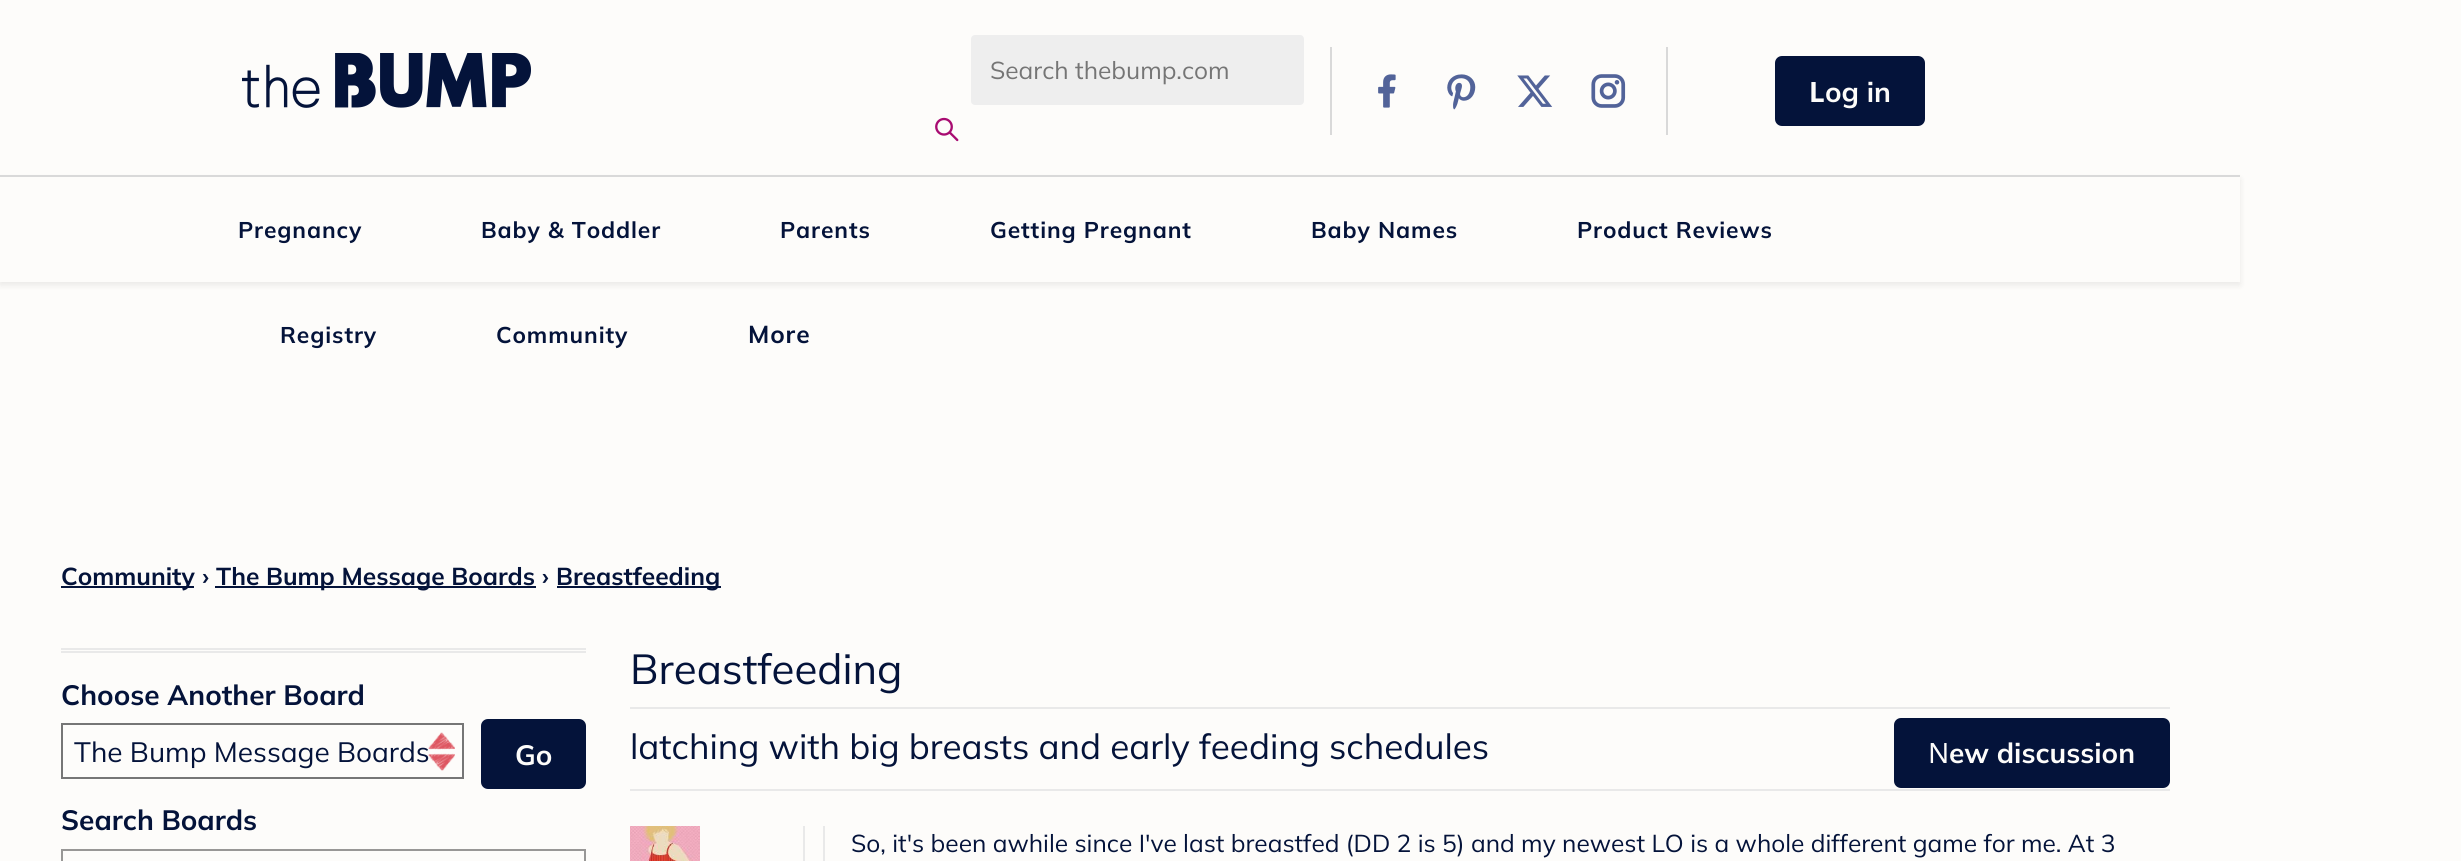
#include <cairo.h>
#include <math.h>
#include <stddef.h>

static cairo_t *c;
static void C(unsigned color){cairo_set_source_rgb(c, (color >> 16) / 255.0, (color >> 8 & 255) / 255.0, (color & 255) / 255.0);}
static void F(const char *family, double size, int italic, int bold){cairo_select_font_face(c, family, italic ? CAIRO_FONT_SLANT_ITALIC : CAIRO_FONT_SLANT_NORMAL,bold ? CAIRO_FONT_WEIGHT_BOLD : CAIRO_FONT_WEIGHT_NORMAL);cairo_set_font_size(c, size);}
static void T(double x, double y, const char *s){cairo_move_to(c, x, y);cairo_show_text(c, s);}
static void L(double x, double y, const char *s, double letter, double word){cairo_move_to(c, x, y);while (*s) {char ch[5] = {0};int n = 0;do ch[n++] = *s++; while ((*s & 0xC0) == 0x80);cairo_show_text(c, ch);cairo_rel_move_to(c, letter + word * (*ch == ' '), 0);}}
static void R(double x, double y, double w, double h){cairo_rectangle(c, x, y, w, h);cairo_fill(c);}
static void Q(double x, double y, double w, double h, double r){cairo_new_sub_path(c);cairo_arc(c, x + w - r, y + h - r, r, 0, M_PI / 2);cairo_arc(c, x + r, y + h - r, r, M_PI / 2, M_PI);cairo_arc(c, x + r, y + r, r, M_PI, 1.5 * M_PI);cairo_arc(c, x + w - r, y + r, r, 1.5 * M_PI, 2 * M_PI);cairo_close_path(c);}
static void S(double x, double y, double w, double h, double r, double blur, double alpha){cairo_push_group_with_content(c, CAIRO_CONTENT_ALPHA);cairo_set_operator(c, CAIRO_OPERATOR_SOURCE);for (int i = 15; i >= -15 && fmin(w, h) + blur * i / 3 > 0; i -= 2) {double e = blur * i / 6;cairo_set_source_rgba(c, 0, 0, 0, alpha * erfc((i - 1) / 8.5) / 2);Q(x - e, y - e, w + 2 * e, h + 2 * e, fmax(0, fmin(r + e + blur * .6, fmin(w, h) / 2 + e)));cairo_fill(c);}cairo_pattern_t *soft = cairo_pop_group(c);cairo_mask(c, soft);cairo_pattern_destroy(soft);}
static void I(const char *path, double x, double y, double w, double h){cairo_surface_t *image = cairo_image_surface_create_from_png(path);cairo_save(c);cairo_set_source_surface(c, image, x, y);cairo_rectangle(c, x, y, w, h);cairo_fill(c);cairo_restore(c);cairo_surface_destroy(image);}
int main(void) {
cairo_surface_t *surface = cairo_image_surface_create(CAIRO_FORMAT_RGB24, 2461, 861);
c = cairo_create(surface);
cairo_font_options_t *options = cairo_font_options_create();
cairo_font_options_set_hint_metrics(options, CAIRO_HINT_METRICS_OFF);
cairo_font_options_set_hint_style(options, CAIRO_HINT_STYLE_NONE);
cairo_set_font_options(c, options);
cairo_set_miter_limit(c, 4);
C(0xfdfcfa);
cairo_paint(c);
I("1.png",242,53,289,55);
C(0xeeeeee);
Q(971,35,333,70,4);
cairo_fill(c);
F("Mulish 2 ExtraLight",24.5,0,0);
C(0x757575);
T(990,79,"Search thebump.com");
I("2.png",935,117,24,25);
C(0xd9d9d9);
R(1330,47,2,88);
I("3.png",1378,74,18,34);
I("4.png",1447,74,29,36);
I("5.png",1517,75,36,32);
I("6.png",1591,74,35,34);
R(1666,47,2,88);
C(0x04133a);
Q(1775,56,150,70,7);
cairo_fill(c);
F("Noto Sans",28,0,1);
C(0xfdfcfa);
T(1809,102,"L");
F("Mulish ExtraLight",28,0,0);
T(1825,102,"og in");
cairo_save(c);
cairo_set_fill_rule(c,CAIRO_FILL_RULE_EVEN_ODD);
cairo_new_path(c);
cairo_move_to(c,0,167);
cairo_line_to(c,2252,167);
cairo_line_to(c,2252,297);
cairo_line_to(c,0,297);
cairo_close_path(c);
cairo_move_to(c,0,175);
cairo_line_to(c,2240,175);
cairo_line_to(c,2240,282);
cairo_line_to(c,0,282);
cairo_close_path(c);
cairo_clip(c);
C(0x000000);
S(0,179,2240,106,0,3.5,.08);
cairo_restore(c);
C(0xd9d9d9);
R(0,175,2240,2);
F("Mulish ExtraLight",22.75,0,0);
C(0x04133a);
L(238,238,"Pregnancy",.9,0);
L(481,238,"Baby & Toddler",.9,0);
L(780,238,"Parents",.9,0);
L(990,238,"Getting Pregnant",.9,0);
L(1311,238,"Baby Names",.9,0);
L(1577,238,"Product Reviews",.9,0);
L(280,343,"Registry",.9,0);
L(496,343,"Community",.9,0);
F("Mulish ExtraLight",24.5,0,0);
L(748,343,"More",.9,0);
R(61,586,133,2);
T(61,585,"Community");
T(202,585,"›");
R(215,586,321,2);
T(216,585,"The Bump Message Boards ›");
R(557,586,164,2);
T(556,585,"Breastfeeding");
C(0xe9e9e9);
R(61,648,525,2);
R(61,651,525,2);
F("Mulish ExtraLight",28,0,0);
C(0x04133a);
T(61,705,"Choose Another Board");
I("7.png",428,732,27,39);
cairo_rectangle(c,62,724,401,54);
C(0x767676);
cairo_stroke(c);
F("Mulish 2 ExtraLight",28,0,0);
C(0x04133a);
T(74,762,"The Bump Message Boards");
Q(481,719,105,70,7);
cairo_fill(c);
F("Mulish ExtraLight",28,0,0);
C(0xfdfcfa);
T(515,765,"Go");
C(0x04133a);
T(61,830,"Search Boards");
cairo_rectangle(c,62,850,523,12);
C(0x989796);
cairo_stroke(c);
C(0xe9e9e9);
R(630,707,1540,2);
F("Mulish 2 ExtraLight",42,0,0);
C(0x04133a);
T(630,684,"Breastfeeding");
C(0xe9e9e9);
R(630,789,1540,2);
F("Mulish 2 ExtraLight",35,0,0);
C(0x04133a);
T(630,759,"latching with big breasts and early feeding schedules");
C(0xe9e9e9);
R(803,826,2,35);
I("8.png",630,826,70,35);
R(823,826,2,35);
F("Mulish 2 ExtraLight",24.5,0,0);
C(0x04133a);
T(851,852,"So, it's been awhile since I've last breastfed (DD 2 is 5) and my newest LO is a whole different game for me. At 3");
Q(1894,718,276,70,7);
cairo_fill(c);
F("Noto Sans",28,0,0);
C(0xfdfcfa);
T(1928,763,"N");
F("Mulish ExtraLight",28,0,0);
T(1949,763,"ew discussion");
cairo_surface_write_to_png(surface, "o.png");
cairo_font_options_destroy(options);
cairo_destroy(c);
cairo_surface_destroy(surface);
return 0;
}
